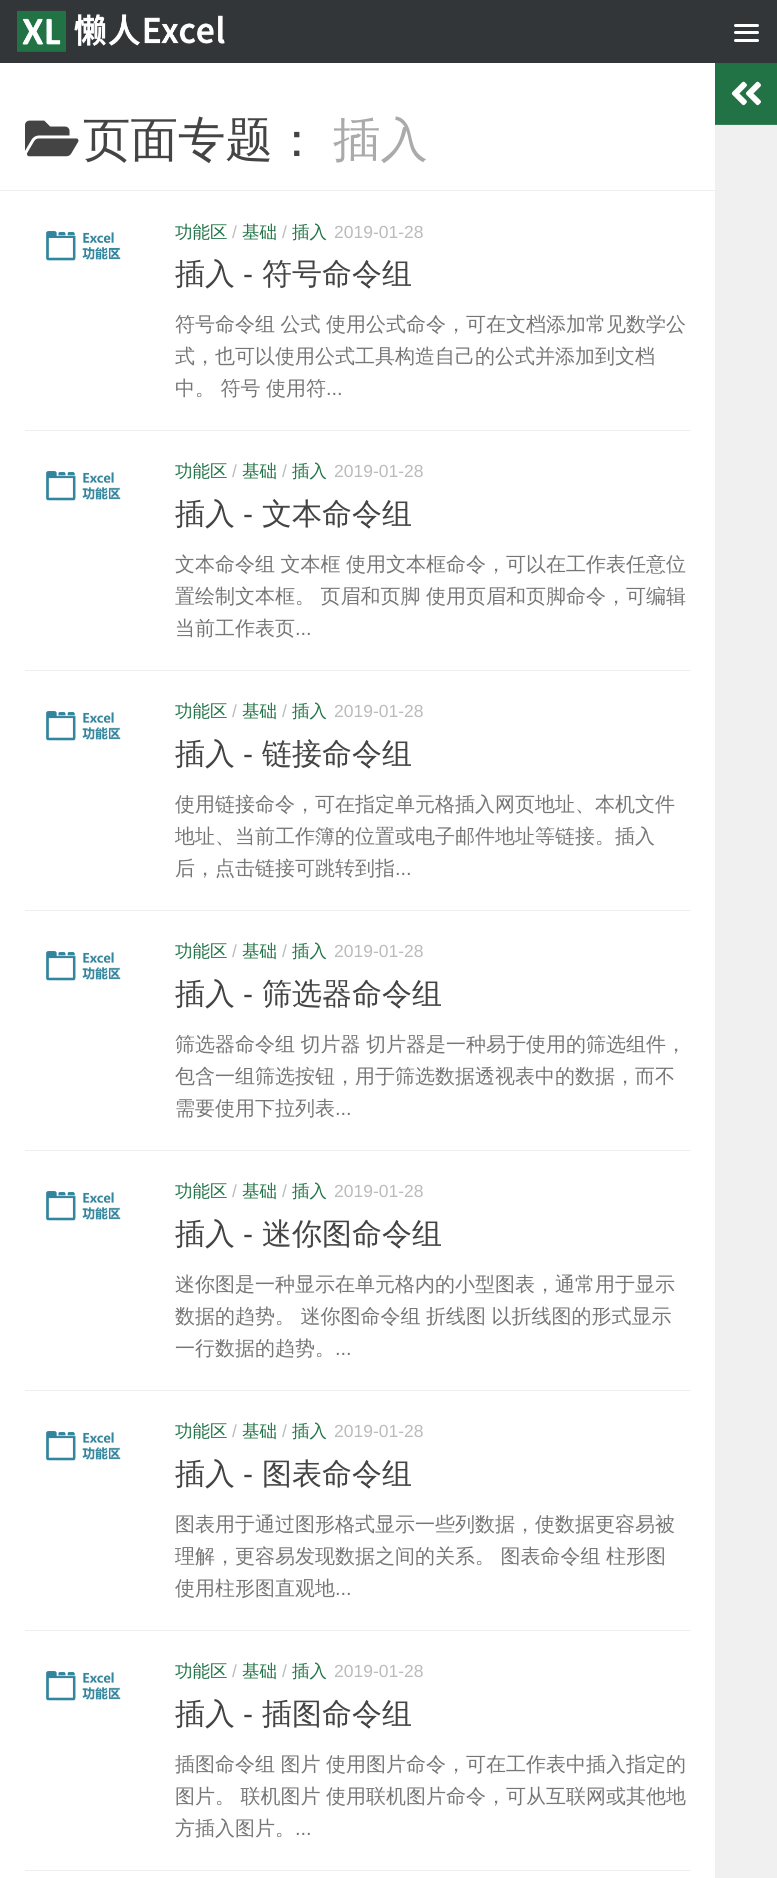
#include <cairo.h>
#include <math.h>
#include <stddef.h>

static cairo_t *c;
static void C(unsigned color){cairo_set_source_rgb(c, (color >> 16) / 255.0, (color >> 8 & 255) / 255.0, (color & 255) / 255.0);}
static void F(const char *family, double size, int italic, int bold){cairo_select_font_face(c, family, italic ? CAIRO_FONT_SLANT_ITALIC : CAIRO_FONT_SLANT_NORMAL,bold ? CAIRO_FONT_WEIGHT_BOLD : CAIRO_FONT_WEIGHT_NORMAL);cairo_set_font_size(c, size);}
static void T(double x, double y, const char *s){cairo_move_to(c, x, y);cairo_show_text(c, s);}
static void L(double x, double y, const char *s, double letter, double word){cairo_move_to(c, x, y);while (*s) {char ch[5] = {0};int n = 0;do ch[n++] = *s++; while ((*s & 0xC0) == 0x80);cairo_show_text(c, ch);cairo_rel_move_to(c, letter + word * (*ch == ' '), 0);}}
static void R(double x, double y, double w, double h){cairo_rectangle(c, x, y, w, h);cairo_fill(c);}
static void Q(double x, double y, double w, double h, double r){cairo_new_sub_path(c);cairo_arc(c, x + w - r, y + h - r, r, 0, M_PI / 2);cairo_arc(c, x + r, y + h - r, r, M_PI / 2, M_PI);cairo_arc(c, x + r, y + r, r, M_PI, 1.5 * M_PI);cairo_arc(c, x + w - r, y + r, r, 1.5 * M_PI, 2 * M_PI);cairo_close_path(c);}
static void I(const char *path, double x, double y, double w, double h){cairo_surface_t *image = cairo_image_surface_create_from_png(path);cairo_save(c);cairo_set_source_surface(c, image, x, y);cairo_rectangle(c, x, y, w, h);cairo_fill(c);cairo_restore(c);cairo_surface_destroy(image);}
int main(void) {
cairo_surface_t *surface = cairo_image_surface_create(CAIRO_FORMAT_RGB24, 777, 1878);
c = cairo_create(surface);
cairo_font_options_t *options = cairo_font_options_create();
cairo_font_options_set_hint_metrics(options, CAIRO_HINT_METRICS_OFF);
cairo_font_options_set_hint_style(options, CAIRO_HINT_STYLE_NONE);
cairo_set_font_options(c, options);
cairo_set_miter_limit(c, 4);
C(0xffffff);
cairo_paint(c);
C(0x333639);
R(0,0,777,63);
I("1.png",17,10,208,42);
C(0xffffff);
Q(734,24,25,3,1.5);
cairo_fill(c);
Q(734,31,25,3,1.5);
cairo_fill(c);
Q(734,39,25,3,1.5);
cairo_fill(c);
C(0x217346);
R(715,63,62,61);
C(0x378159);
R(715,124,62,1);
I("2.png",731,81,30,25);
C(0xeeeeee);
R(0,190,715,1);
I("3.png",25,120,54,37);
F("WenQuanYi Zen Hei Medium",47.5,0,0);
C(0x444444);
T(83,156,"页面专题：");
C(0xaaaaaa);
T(333,156,"插入");
C(0xeeeeee);
R(25,430,665,1);
I("4.png",46,231,75,30);
F("WenQuanYi Zen Hei Medium",17.5,0,0);
C(0x217346);
T(175,238,"功能区");
F("Liberation Sans",17.5,0,0);
C(0xbbbbbb);
T(232,238,"/");
F("WenQuanYi Zen Hei Medium",17.5,0,0);
C(0x217346);
T(242,238,"基础");
F("Liberation Sans",17.5,0,0);
C(0xbbbbbb);
T(282,238,"/");
F("WenQuanYi Zen Hei Medium",17.5,0,0);
C(0x217346);
T(292,238,"插入");
F("Liberation Sans",17.5,0,0);
C(0xbbbbbb);
T(334,238,"2019-01-28");
F("WenQuanYi Zen Hei Medium",30,0,0);
C(0x444444);
T(175,284,"插入");
F("Liberation Sans",30,0,0);
T(243,284,"-");
F("WenQuanYi Zen Hei Medium",30,0,0);
T(262,284,"符号命令组");
F("WenQuanYi Zen Hei Medium",20,0,0);
C(0x767676);
L(175,331,"符号命令组 公式 使用公式命令，可在文档添加常见数学公",0,-.5);
T(175,363,"式，也可以使用公式工具构造自己的公式并添加到文档");
L(175,395,"中。 符号 使用符",0,-.5);
F("Liberation Sans",20,0,0);
T(326,395,"...");
C(0xeeeeee);
R(25,670,665,1);
I("5.png",46,471,75,30);
F("WenQuanYi Zen Hei Medium",17.5,0,0);
C(0x217346);
T(175,477,"功能区");
F("Liberation Sans",17.5,0,0);
C(0xbbbbbb);
T(232,477,"/");
F("WenQuanYi Zen Hei Medium",17.5,0,0);
C(0x217346);
T(242,477,"基础");
F("Liberation Sans",17.5,0,0);
C(0xbbbbbb);
T(282,477,"/");
F("WenQuanYi Zen Hei Medium",17.5,0,0);
C(0x217346);
T(292,477,"插入");
F("Liberation Sans",17.5,0,0);
C(0xbbbbbb);
T(334,477,"2019-01-28");
F("WenQuanYi Zen Hei Medium",30,0,0);
C(0x444444);
T(175,524,"插入");
F("Liberation Sans",30,0,0);
T(243,524,"-");
F("WenQuanYi Zen Hei Medium",30,0,0);
T(262,524,"文本命令组");
F("WenQuanYi Zen Hei Medium",20,0,0);
C(0x767676);
L(175,571,"文本命令组 文本框 使用文本框命令，可以在工作表任意位",0,-.5);
L(175,603,"置绘制文本框。 页眉和页脚 使用页眉和页脚命令，可编辑",0,-.5);
T(175,635,"当前工作表页");
F("Liberation Sans",20,0,0);
T(295,635,"...");
C(0xeeeeee);
R(25,910,665,1);
I("5.png",46,711,75,30);
F("WenQuanYi Zen Hei Medium",17.5,0,0);
C(0x217346);
T(175,717,"功能区");
F("Liberation Sans",17.5,0,0);
C(0xbbbbbb);
T(232,717,"/");
F("WenQuanYi Zen Hei Medium",17.5,0,0);
C(0x217346);
T(242,717,"基础");
F("Liberation Sans",17.5,0,0);
C(0xbbbbbb);
T(282,717,"/");
F("WenQuanYi Zen Hei Medium",17.5,0,0);
C(0x217346);
T(292,717,"插入");
F("Liberation Sans",17.5,0,0);
C(0xbbbbbb);
T(334,717,"2019-01-28");
F("WenQuanYi Zen Hei Medium",30,0,0);
C(0x444444);
T(175,764,"插入");
F("Liberation Sans",30,0,0);
T(243,764,"-");
F("WenQuanYi Zen Hei Medium",30,0,0);
T(262,764,"链接命令组");
F("WenQuanYi Zen Hei Medium",20,0,0);
C(0x767676);
T(175,811,"使用链接命令，可在指定单元格插入网页地址、本机文件");
T(175,843,"地址、当前工作簿的位置或电子邮件地址等链接。插入");
T(175,875,"后，点击链接可跳转到指");
F("Liberation Sans",20,0,0);
T(395,875,"...");
C(0xeeeeee);
R(25,1150,665,1);
I("5.png",46,951,75,30);
F("WenQuanYi Zen Hei Medium",17.5,0,0);
C(0x217346);
T(175,957,"功能区");
F("Liberation Sans",17.5,0,0);
C(0xbbbbbb);
T(232,957,"/");
F("WenQuanYi Zen Hei Medium",17.5,0,0);
C(0x217346);
T(242,957,"基础");
F("Liberation Sans",17.5,0,0);
C(0xbbbbbb);
T(282,957,"/");
F("WenQuanYi Zen Hei Medium",17.5,0,0);
C(0x217346);
T(292,957,"插入");
F("Liberation Sans",17.5,0,0);
C(0xbbbbbb);
T(334,957,"2019-01-28");
F("WenQuanYi Zen Hei Medium",30,0,0);
C(0x444444);
T(175,1004,"插入");
F("Liberation Sans",30,0,0);
T(243,1004,"-");
F("WenQuanYi Zen Hei Medium",30,0,0);
T(262,1004,"筛选器命令组");
F("WenQuanYi Zen Hei Medium",20,0,0);
C(0x767676);
L(175,1051,"筛选器命令组 切片器 切片器是一种易于使用的筛选组件，",0,-.5);
T(175,1083,"包含一组筛选按钮，用于筛选数据透视表中的数据，而不");
T(175,1115,"需要使用下拉列表");
F("Liberation Sans",20,0,0);
T(335,1115,"...");
C(0xeeeeee);
R(25,1390,665,1);
I("5.png",46,1191,75,30);
F("WenQuanYi Zen Hei Medium",17.5,0,0);
C(0x217346);
T(175,1197,"功能区");
F("Liberation Sans",17.5,0,0);
C(0xbbbbbb);
T(232,1197,"/");
F("WenQuanYi Zen Hei Medium",17.5,0,0);
C(0x217346);
T(242,1197,"基础");
F("Liberation Sans",17.5,0,0);
C(0xbbbbbb);
T(282,1197,"/");
F("WenQuanYi Zen Hei Medium",17.5,0,0);
C(0x217346);
T(292,1197,"插入");
F("Liberation Sans",17.5,0,0);
C(0xbbbbbb);
T(334,1197,"2019-01-28");
F("WenQuanYi Zen Hei Medium",30,0,0);
C(0x444444);
T(175,1244,"插入");
F("Liberation Sans",30,0,0);
T(243,1244,"-");
F("WenQuanYi Zen Hei Medium",30,0,0);
T(262,1244,"迷你图命令组");
F("WenQuanYi Zen Hei Medium",20,0,0);
C(0x767676);
T(175,1291,"迷你图是一种显示在单元格内的小型图表，通常用于显示");
L(175,1323,"数据的趋势。 迷你图命令组 折线图 以折线图的形式显示",0,-.5);
T(175,1355,"一行数据的趋势。");
F("Liberation Sans",20,0,0);
T(335,1355,"...");
C(0xeeeeee);
R(25,1630,665,1);
I("5.png",46,1431,75,30);
F("WenQuanYi Zen Hei Medium",17.5,0,0);
C(0x217346);
T(175,1437,"功能区");
F("Liberation Sans",17.5,0,0);
C(0xbbbbbb);
T(232,1437,"/");
F("WenQuanYi Zen Hei Medium",17.5,0,0);
C(0x217346);
T(242,1437,"基础");
F("Liberation Sans",17.5,0,0);
C(0xbbbbbb);
T(282,1437,"/");
F("WenQuanYi Zen Hei Medium",17.5,0,0);
C(0x217346);
T(292,1437,"插入");
F("Liberation Sans",17.5,0,0);
C(0xbbbbbb);
T(334,1437,"2019-01-28");
F("WenQuanYi Zen Hei Medium",30,0,0);
C(0x444444);
T(175,1484,"插入");
F("Liberation Sans",30,0,0);
T(243,1484,"-");
F("WenQuanYi Zen Hei Medium",30,0,0);
T(262,1484,"图表命令组");
F("WenQuanYi Zen Hei Medium",20,0,0);
C(0x767676);
T(175,1531,"图表用于通过图形格式显示一些列数据，使数据更容易被");
L(175,1563,"理解，更容易发现数据之间的关系。 图表命令组 柱形图",0,-.5);
T(175,1595,"使用柱形图直观地");
F("Liberation Sans",20,0,0);
T(335,1595,"...");
C(0xeeeeee);
R(25,1870,665,1);
I("5.png",46,1671,75,30);
F("WenQuanYi Zen Hei Medium",17.5,0,0);
C(0x217346);
T(175,1677,"功能区");
F("Liberation Sans",17.5,0,0);
C(0xbbbbbb);
T(232,1677,"/");
F("WenQuanYi Zen Hei Medium",17.5,0,0);
C(0x217346);
T(242,1677,"基础");
F("Liberation Sans",17.5,0,0);
C(0xbbbbbb);
T(282,1677,"/");
F("WenQuanYi Zen Hei Medium",17.5,0,0);
C(0x217346);
T(292,1677,"插入");
F("Liberation Sans",17.5,0,0);
C(0xbbbbbb);
T(334,1677,"2019-01-28");
F("WenQuanYi Zen Hei Medium",30,0,0);
C(0x444444);
T(175,1724,"插入");
F("Liberation Sans",30,0,0);
T(243,1724,"-");
F("WenQuanYi Zen Hei Medium",30,0,0);
T(262,1724,"插图命令组");
F("WenQuanYi Zen Hei Medium",20,0,0);
C(0x767676);
L(175,1771,"插图命令组 图片 使用图片命令，可在工作表中插入指定的",0,-.5);
L(175,1803,"图片。 联机图片 使用联机图片命令，可从互联网或其他地",0,-.5);
T(175,1835,"方插入图片。");
F("Liberation Sans",20,0,0);
T(295,1835,"...");
C(0xf0f0f0);
R(715,125,62,1753);
cairo_surface_write_to_png(surface, "o.png");
cairo_font_options_destroy(options);
cairo_destroy(c);
cairo_surface_destroy(surface);
return 0;
}
